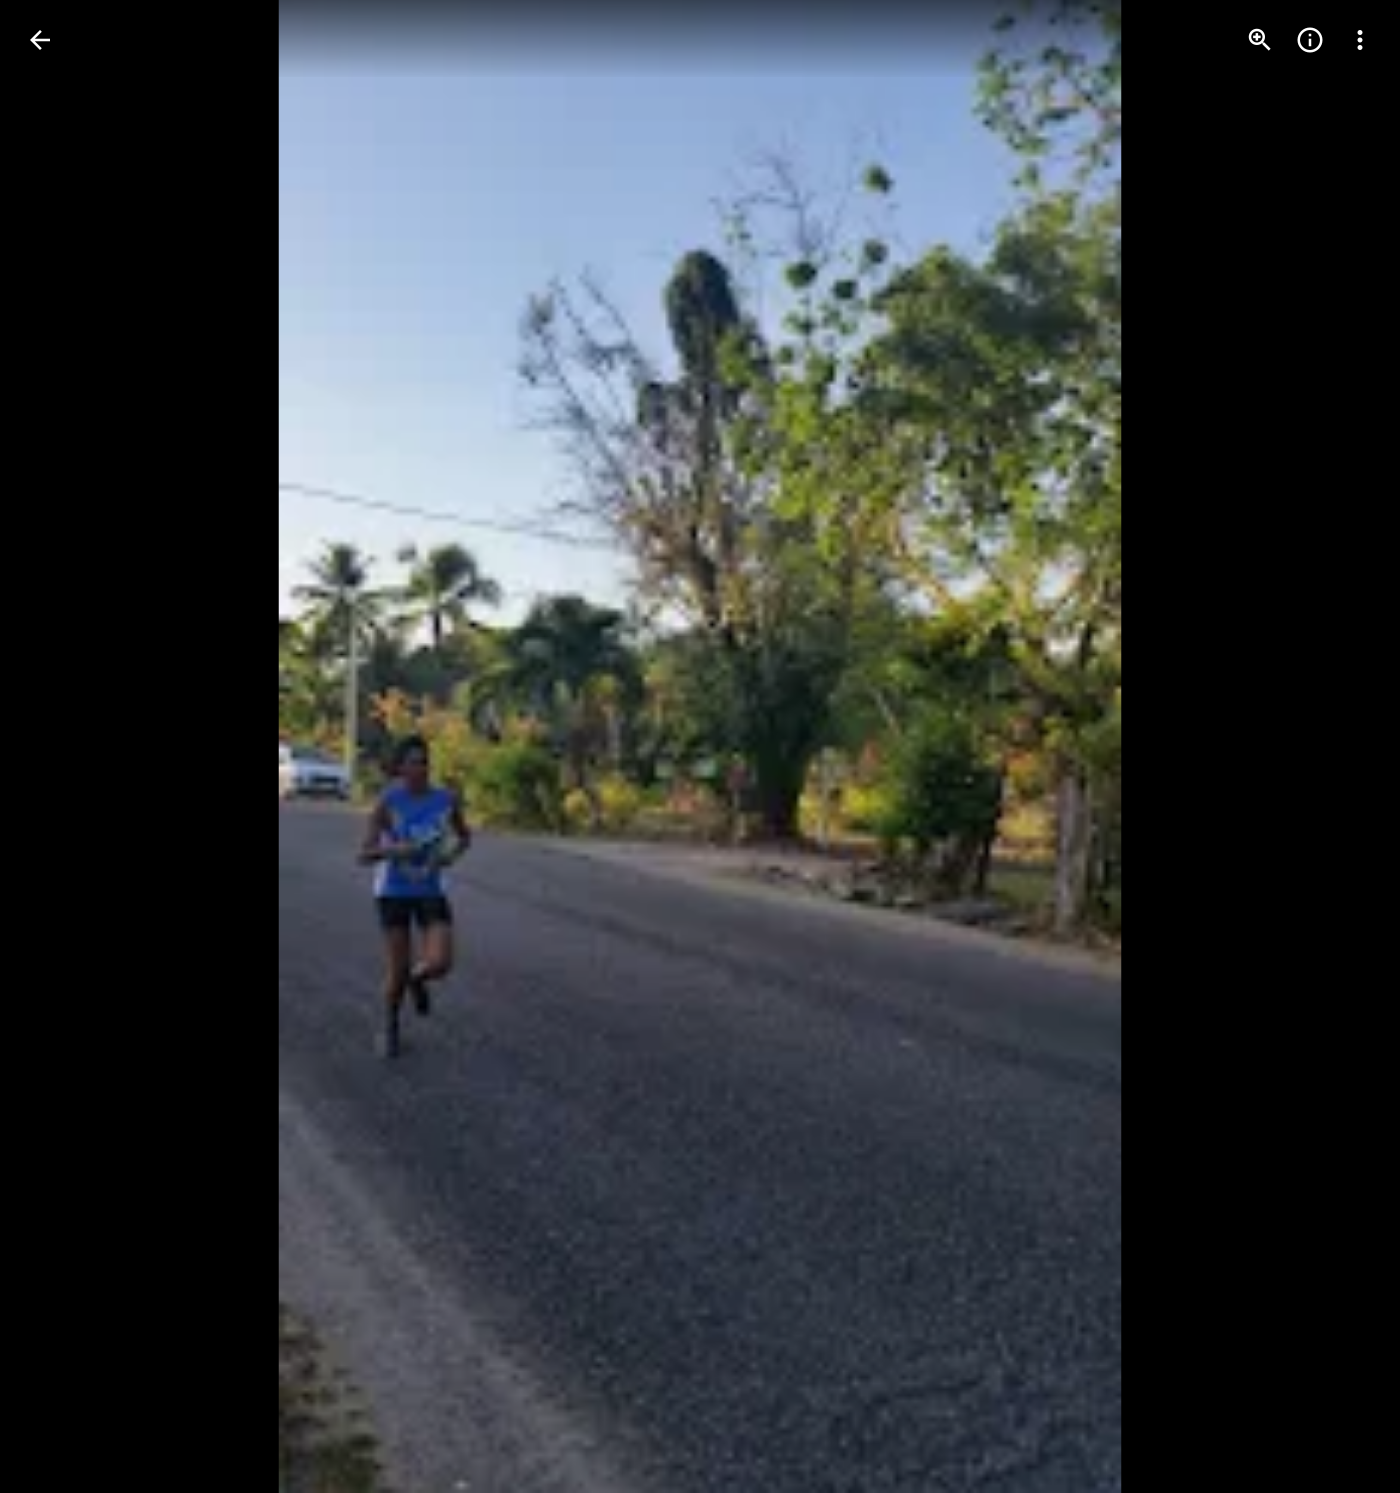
#include <cairo.h>
#include <math.h>
#include <stddef.h>

static cairo_t *c;
static void C(unsigned color){cairo_set_source_rgb(c, (color >> 16) / 255.0, (color >> 8 & 255) / 255.0, (color & 255) / 255.0);}
static void R(double x, double y, double w, double h){cairo_rectangle(c, x, y, w, h);cairo_fill(c);}
static void I(const char *path, double x, double y, double w, double h){cairo_surface_t *image = cairo_image_surface_create_from_png(path);cairo_save(c);cairo_set_source_surface(c, image, x, y);cairo_rectangle(c, x, y, w, h);cairo_fill(c);cairo_restore(c);cairo_surface_destroy(image);}
int main(void) {
cairo_surface_t *surface = cairo_image_surface_create(CAIRO_FORMAT_RGB24, 1400, 1493);
c = cairo_create(surface);
cairo_font_options_t *options = cairo_font_options_create();
cairo_font_options_set_hint_metrics(options, CAIRO_HINT_METRICS_OFF);
cairo_font_options_set_hint_style(options, CAIRO_HINT_STYLE_NONE);
cairo_set_font_options(c, options);
cairo_set_miter_limit(c, 4);
cairo_pattern_t *gradient;
C(0x000000);
cairo_paint(c);
I("5.png",278,0,844,1493);
gradient = cairo_pattern_create_linear(700,0,700,80);
cairo_pattern_add_color_stop_rgba(gradient,0,0,0,0,.6);
cairo_pattern_add_color_stop_rgba(gradient,1,0,0,0,0);
cairo_set_source(c,gradient);
cairo_pattern_destroy(gradient);
R(278,0,844,77);
I("1.png",30,30,20,20);
I("2.png",1248,28,23,23);
I("3.png",1297,27,26,26);
I("4.png",1357,30,6,20);
cairo_surface_write_to_png(surface, "o.png");
cairo_font_options_destroy(options);
cairo_destroy(c);
cairo_surface_destroy(surface);
return 0;
}
